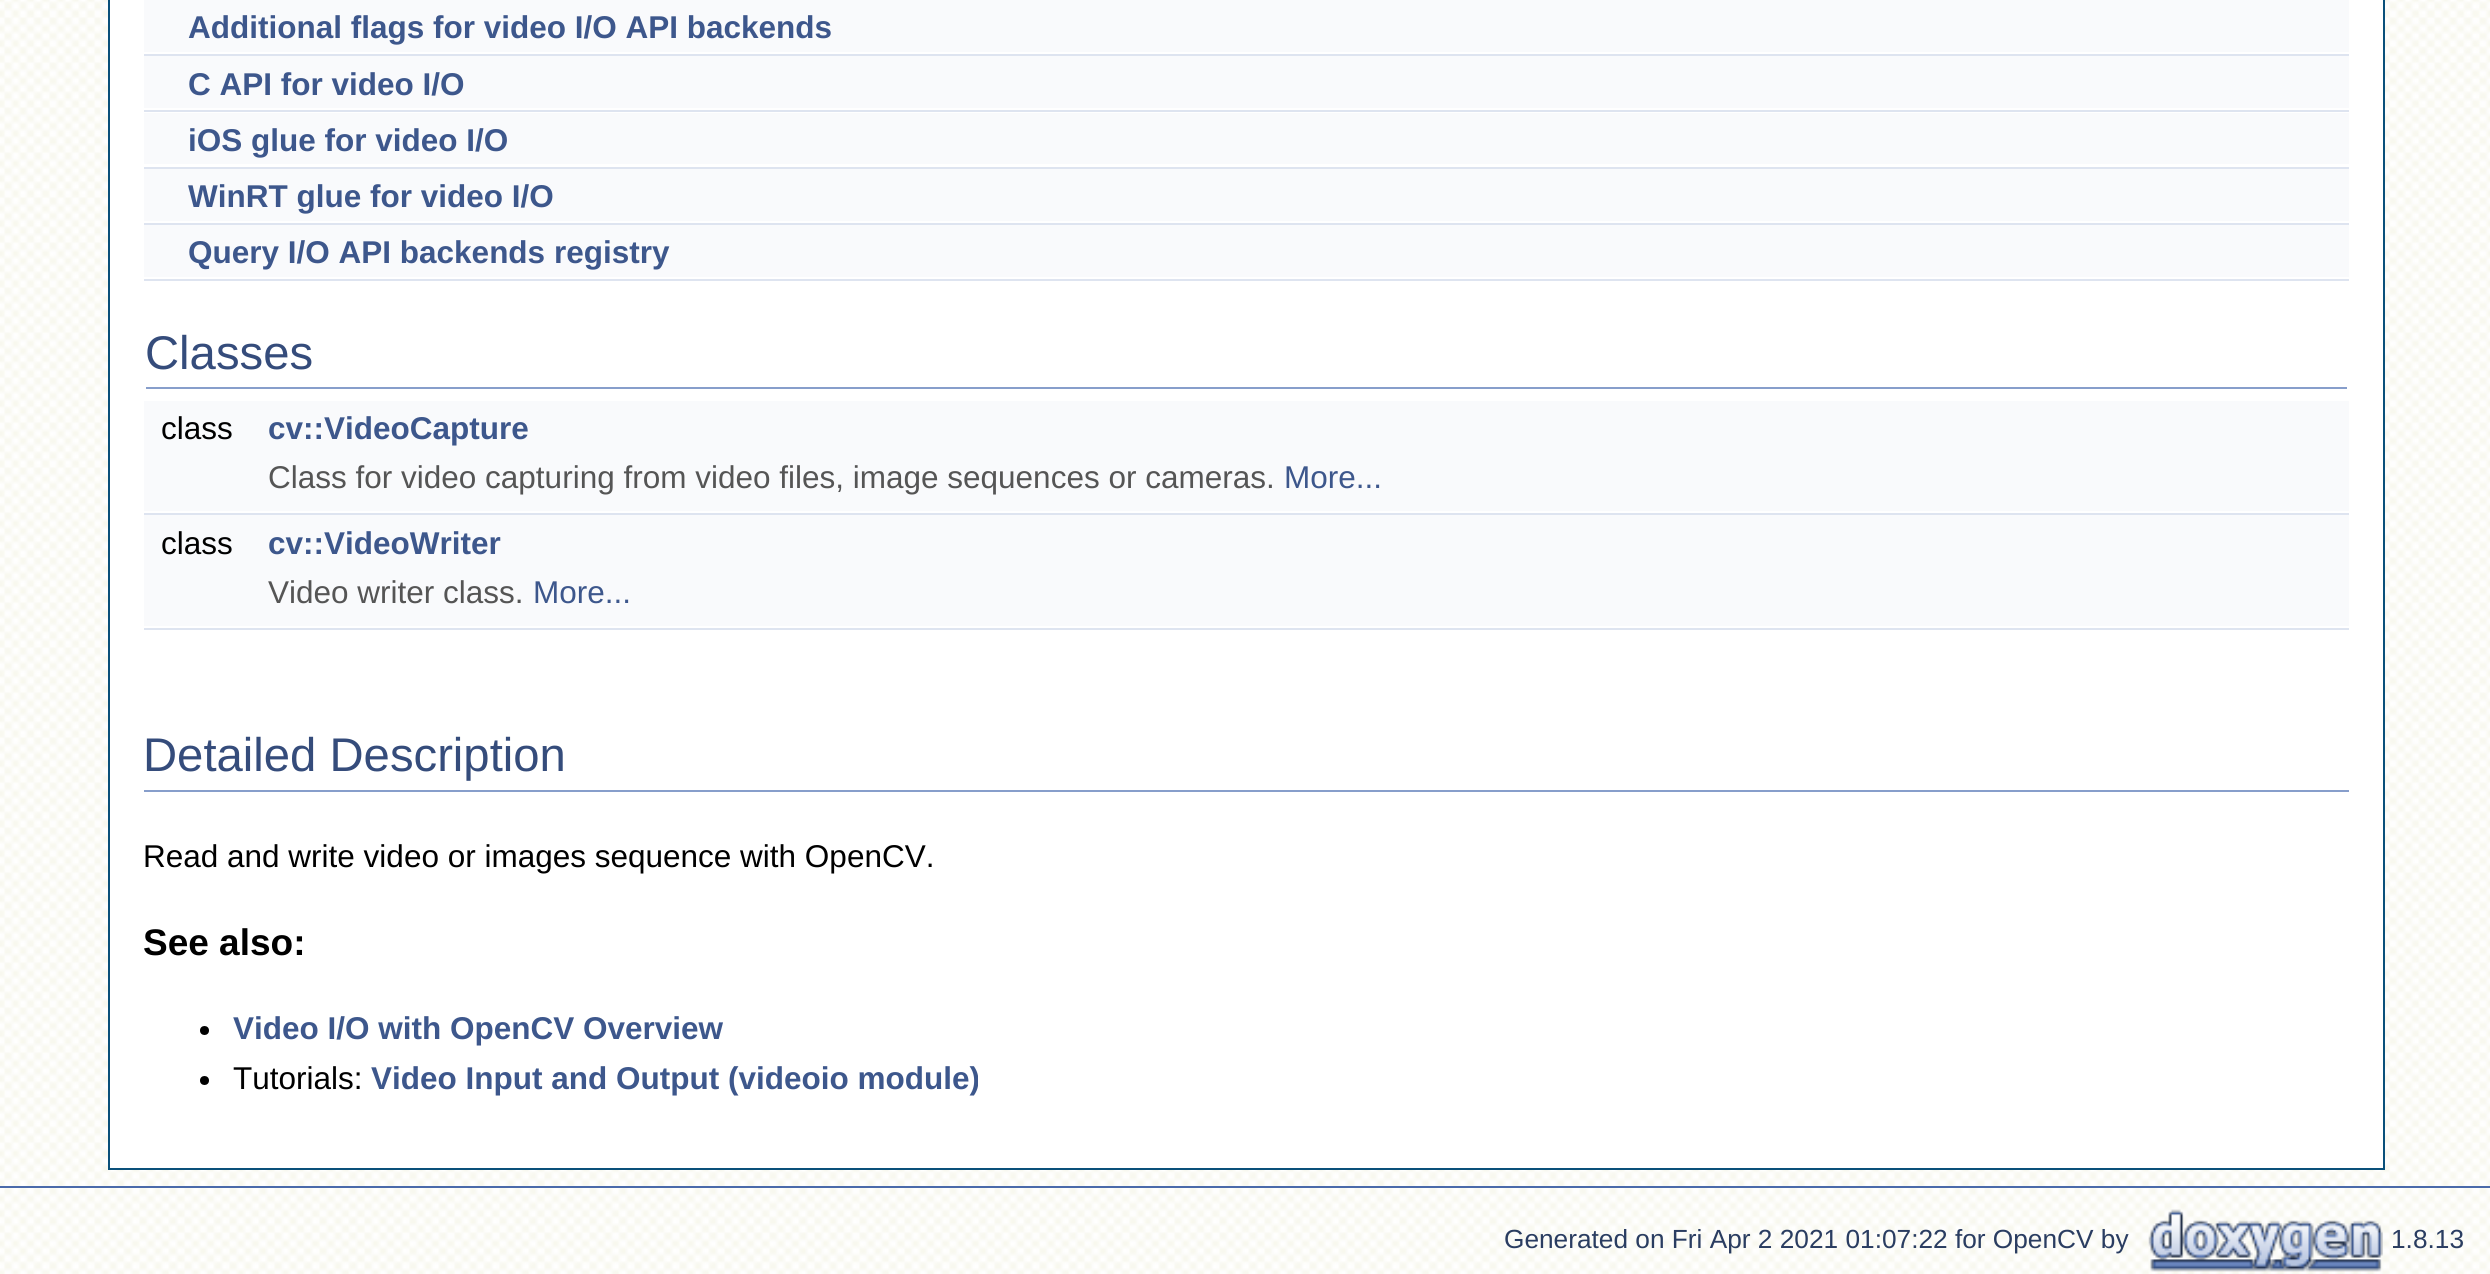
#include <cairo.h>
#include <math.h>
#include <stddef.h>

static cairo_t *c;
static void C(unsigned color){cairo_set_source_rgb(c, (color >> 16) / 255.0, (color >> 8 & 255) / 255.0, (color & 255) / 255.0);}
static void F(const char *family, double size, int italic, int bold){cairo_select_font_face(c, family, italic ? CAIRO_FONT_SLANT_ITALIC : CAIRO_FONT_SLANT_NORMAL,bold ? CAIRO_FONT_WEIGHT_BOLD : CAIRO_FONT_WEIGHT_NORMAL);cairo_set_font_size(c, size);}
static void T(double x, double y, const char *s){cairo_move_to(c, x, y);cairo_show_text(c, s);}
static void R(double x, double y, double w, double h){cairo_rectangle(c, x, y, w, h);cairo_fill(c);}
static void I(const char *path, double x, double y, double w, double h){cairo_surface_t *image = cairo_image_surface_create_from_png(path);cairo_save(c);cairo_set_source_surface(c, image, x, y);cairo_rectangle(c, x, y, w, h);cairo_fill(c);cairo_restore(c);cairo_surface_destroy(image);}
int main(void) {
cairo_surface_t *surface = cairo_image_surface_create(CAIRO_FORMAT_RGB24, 2490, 1274);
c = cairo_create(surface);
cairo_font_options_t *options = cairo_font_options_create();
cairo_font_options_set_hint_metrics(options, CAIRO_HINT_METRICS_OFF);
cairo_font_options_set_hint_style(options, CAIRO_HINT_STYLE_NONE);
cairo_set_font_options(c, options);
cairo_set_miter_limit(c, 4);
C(0xffffff);
cairo_paint(c);
I("1.png",0,0,2490,1274);
C(0xffffff);
cairo_rectangle(c,109,-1,2275,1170);
cairo_fill_preserve(c);
C(0x0a507a);
cairo_stroke(c);
C(0xf9fafc);
R(144,0,2205,52);
F("Liberation Sans",31.5,0,1);
C(0x3d578c);
T(188,38,"Additional flags for video I/O API backends");
C(0xdee4f0);
R(144,54,2205,2);
C(0xf9fafc);
R(144,56,2205,52);
C(0x3d578c);
T(188,95,"C API for video I/O");
C(0xdee4f0);
R(144,110,2205,2);
C(0xf9fafc);
R(144,113,2205,51);
C(0x3d578c);
T(188,151,"iOS glue for video I/O");
C(0xdee4f0);
R(144,167,2205,2);
C(0xf9fafc);
R(144,169,2205,52);
C(0x3d578c);
T(188,207,"WinRT glue for video I/O");
C(0xdee4f0);
R(144,223,2205,2);
C(0xf9fafc);
R(144,225,2205,52);
C(0x3d578c);
T(188,263,"Query I/O API backends registry");
C(0xdee4f0);
R(144,279,2205,2);
C(0x879ecb);
R(146,387,2201,2);
F("Liberation Sans",47.25,0,0);
C(0x354c7b);
T(145,369,"Classes");
C(0xf9fafc);
R(144,401,2205,51);
F("Liberation Sans",31.5,0,0);
C(0x000000);
T(161,439,"class");
F("Liberation Sans",31.5,0,1);
C(0x3d578c);
T(268,439,"cv::VideoCapture");
C(0xf9fafc);
R(144,452,2205,59);
F("Liberation Sans",31.5,0,0);
C(0x555555);
T(268,488,"Class for video capturing from video files, image sequences or cameras.");
C(0x3d578c);
T(1284,488,"More...");
C(0xdee4f0);
R(144,513,2205,2);
C(0xf9fafc);
R(144,515,2205,52);
C(0x000000);
T(161,554,"class");
F("Liberation Sans",31.5,0,1);
C(0x3d578c);
T(268,554,"cv::VideoWriter");
C(0xf9fafc);
R(144,567,2205,59);
F("Liberation Sans",31.5,0,0);
C(0x555555);
T(268,603,"Video writer class.");
C(0x3d578c);
T(533,603,"More...");
C(0xdee4f0);
R(144,628,2205,2);
C(0x879ecb);
R(144,790,2205,2);
F("Liberation Sans",47.25,0,0);
C(0x354c7b);
T(143,771,"Detailed Description");
F("Liberation Sans",31.5,0,0);
C(0x000000);
T(143,867,"Read and write video or images sequence with OpenCV.");
F("Liberation Sans",37,0,1);
T(143,955,"See also:");
cairo_new_path(c);
cairo_arc(c,204.5,1030.5,4.5,0,2 * M_PI);
cairo_fill(c);
F("Liberation Sans",31.5,0,1);
C(0x3d578c);
T(233,1039,"Video I/O with OpenCV Overview");
C(0x000000);
cairo_new_path(c);
cairo_arc(c,204.5,1080.5,4.5,0,2 * M_PI);
cairo_fill(c);
F("Liberation Sans",31.5,0,0);
T(233,1089,"Tutorials:");
F("Liberation Sans",31.5,0,1);
C(0x3d578c);
T(371,1089,"Video Input and Output (videoio module)");
C(0x4a6aaa);
R(0,1186,2490,2);
F("Liberation Sans",26.25,0,0);
C(0x2a3d61);
T(1504,1248,"Generated on Fri Apr 2 2021 01:07:22 for OpenCV by");
I("2.png",2148,1209,235,63);
T(2391,1248,"1.8.13");
cairo_surface_write_to_png(surface, "o.png");
cairo_font_options_destroy(options);
cairo_destroy(c);
cairo_surface_destroy(surface);
return 0;
}
